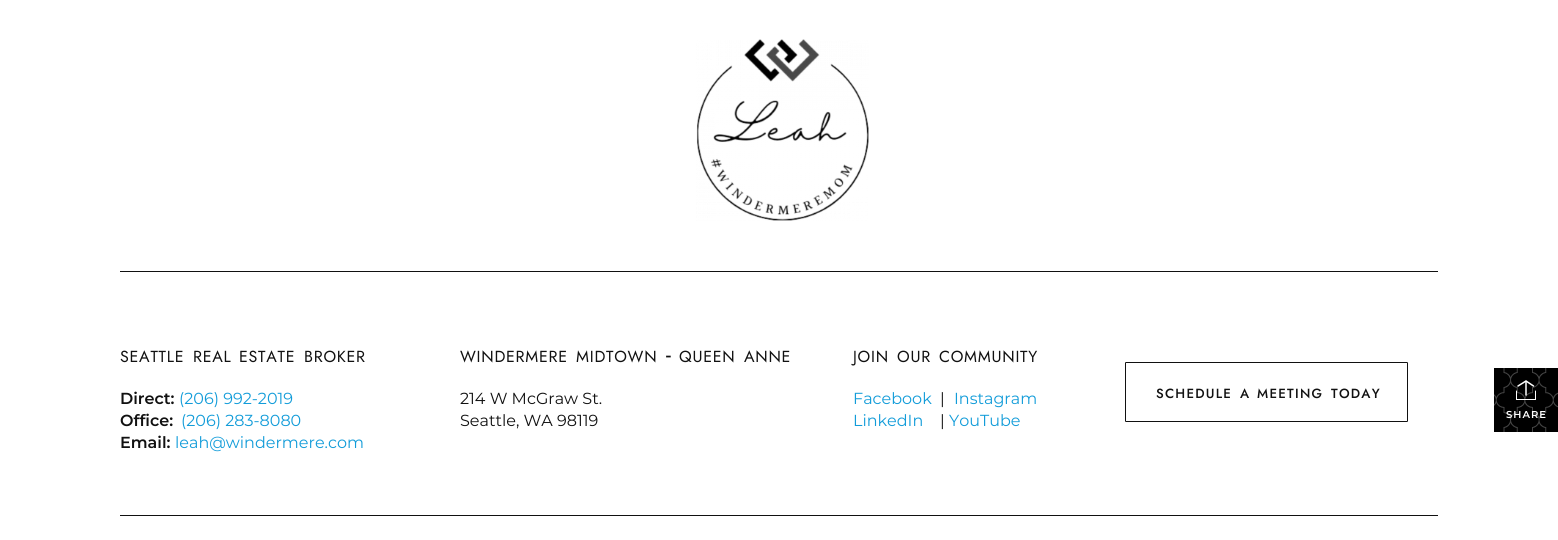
#include <cairo.h>
#include <math.h>
#include <stddef.h>

static cairo_t *c;
static void C(unsigned color){cairo_set_source_rgb(c, (color >> 16) / 255.0, (color >> 8 & 255) / 255.0, (color & 255) / 255.0);}
static void F(const char *family, double size, int italic, int bold){cairo_select_font_face(c, family, italic ? CAIRO_FONT_SLANT_ITALIC : CAIRO_FONT_SLANT_NORMAL,bold ? CAIRO_FONT_WEIGHT_BOLD : CAIRO_FONT_WEIGHT_NORMAL);cairo_set_font_size(c, size);}
static void T(double x, double y, const char *s){cairo_move_to(c, x, y);cairo_show_text(c, s);}
static void L(double x, double y, const char *s, double letter, double word){cairo_move_to(c, x, y);while (*s) {char ch[5] = {0};int n = 0;do ch[n++] = *s++; while ((*s & 0xC0) == 0x80);cairo_show_text(c, ch);cairo_rel_move_to(c, letter + word * (*ch == ' '), 0);}}
static void R(double x, double y, double w, double h){cairo_rectangle(c, x, y, w, h);cairo_fill(c);}
static void Q(double x, double y, double w, double h, double r){cairo_new_sub_path(c);cairo_arc(c, x + w - r, y + h - r, r, 0, M_PI / 2);cairo_arc(c, x + r, y + h - r, r, M_PI / 2, M_PI);cairo_arc(c, x + r, y + r, r, M_PI, 1.5 * M_PI);cairo_arc(c, x + w - r, y + r, r, 1.5 * M_PI, 2 * M_PI);cairo_close_path(c);}
static void I(const char *path, double x, double y, double w, double h){cairo_surface_t *image = cairo_image_surface_create_from_png(path);cairo_save(c);cairo_set_source_surface(c, image, x, y);cairo_rectangle(c, x, y, w, h);cairo_fill(c);cairo_restore(c);cairo_surface_destroy(image);}
int main(void) {
cairo_surface_t *surface = cairo_image_surface_create(CAIRO_FORMAT_RGB24, 1558, 540);
c = cairo_create(surface);
cairo_font_options_t *options = cairo_font_options_create();
cairo_font_options_set_hint_metrics(options, CAIRO_HINT_METRICS_OFF);
cairo_font_options_set_hint_style(options, CAIRO_HINT_STYLE_NONE);
cairo_set_font_options(c, options);
cairo_set_miter_limit(c, 4);
C(0xffffff);
cairo_paint(c);
I("1.png",696,39,173,182);
C(0x111111);
R(120,271,1318,1);
F("Jost",16,0,0);
L(120,362,"SEATTLE",.75,0);
L(193,362,"REAL",.75,0);
L(239,362,"ESTATE",.75,0);
L(304,362,"BROKER",.75,0);
F("Montserrat SemiBold",16,0,0);
T(120,404,"Direct:");
F("Montserrat",16,0,0);
C(0x129cd9);
T(179,404,"(206) 992-2019");
F("Montserrat SemiBold",16,0,0);
C(0x111111);
T(120,426,"Office:");
F("Montserrat",16,0,0);
C(0x129cd9);
T(181,426,"(206) 283-8080");
F("Montserrat SemiBold",16,0,0);
C(0x111111);
T(120,448,"Email:");
F("Montserrat",16,0,0);
C(0x129cd9);
T(175,448,"leah@windermere.com");
F("Jost",16,0,0);
C(0x111111);
L(460,362,"WINDERMERE",.75,0);
L(576,362,"MIDTOWN",.75,0);
F("Jost",23,0,0);
L(666,362,"-",.75,0);
F("Jost",16,0,0);
L(679,362,"QUEEN",.75,0);
L(744,362,"ANNE",.75,0);
F("Montserrat",16,0,0);
T(460,404,"214 W McGraw St.");
T(460,426,"Seattle, WA 98119");
F("Jost",16,0,0);
L(853,362,"JOIN",.75,0);
L(897,362,"OUR",.75,0);
L(939,362,"COMMUNITY",.75,0);
F("Montserrat",16,0,0);
C(0x129cd9);
T(853,404,"Facebook");
C(0x111111);
T(940,404,"|");
C(0x129cd9);
T(954,404,"Instagram");
T(853,426,"LinkedIn");
C(0x111111);
T(940,426,"|");
C(0x129cd9);
T(949,426,"YouTube");
Q(1125.5,362.5,282,59,.5);
C(0x111111);
cairo_set_line_width(c,1);
cairo_stroke(c);
F("Jost Medium",13.25,0,0);
L(1156,398,"SCHEDULE",1.25,0);
L(1240,398,"A",1.25,0);
L(1257,398,"MEETING",1.25,0);
L(1331,398,"TODAY",1.25,0);
R(120,515,1318,1);
I("2.png",1494,368,64,64);
I("3.png",1516,380,20,20);
F("Montserrat SemiBold",10,0,0);
C(0xffffff);
L(1506,418,"SHARE",1,0);
cairo_surface_write_to_png(surface, "o.png");
cairo_font_options_destroy(options);
cairo_destroy(c);
cairo_surface_destroy(surface);
return 0;
}
